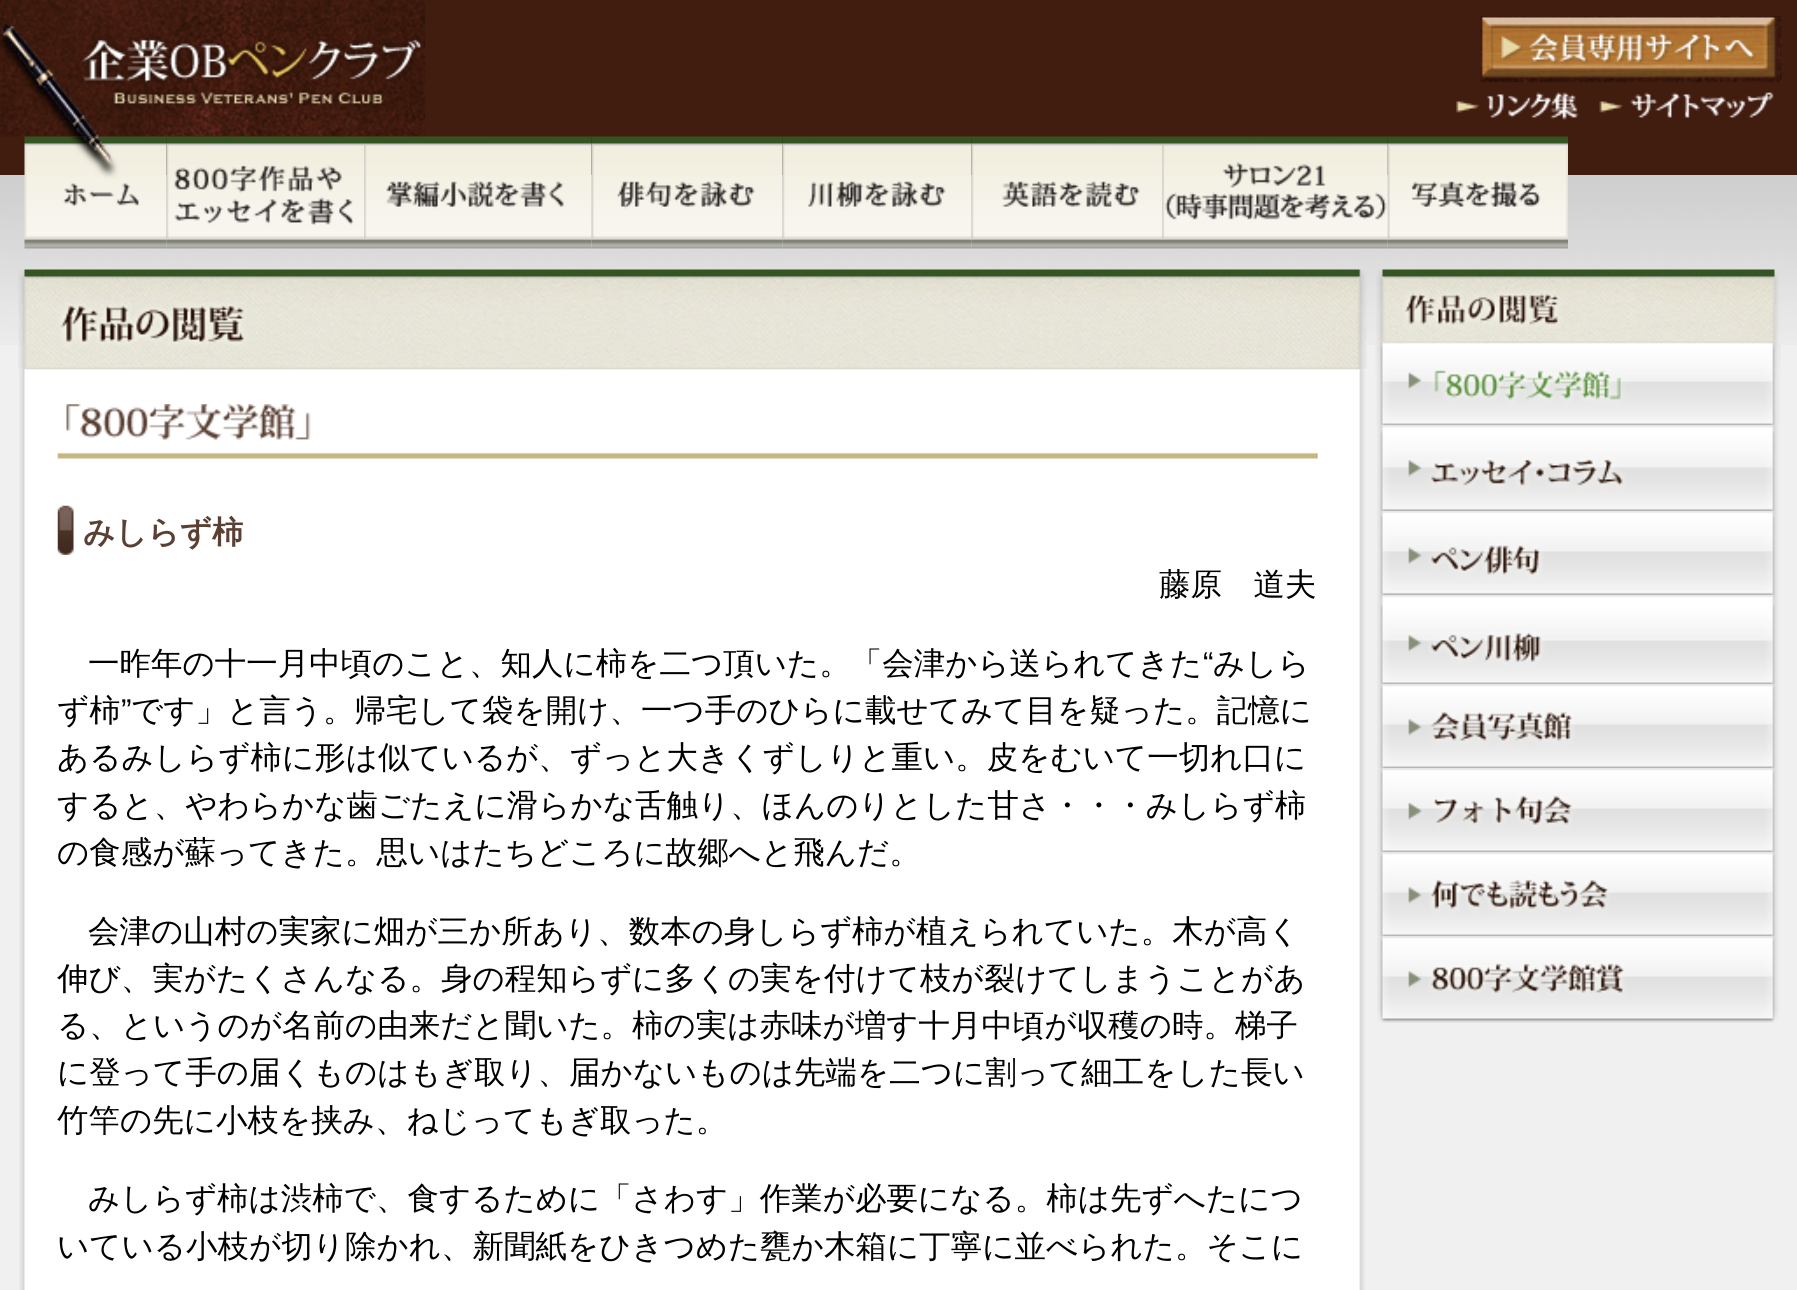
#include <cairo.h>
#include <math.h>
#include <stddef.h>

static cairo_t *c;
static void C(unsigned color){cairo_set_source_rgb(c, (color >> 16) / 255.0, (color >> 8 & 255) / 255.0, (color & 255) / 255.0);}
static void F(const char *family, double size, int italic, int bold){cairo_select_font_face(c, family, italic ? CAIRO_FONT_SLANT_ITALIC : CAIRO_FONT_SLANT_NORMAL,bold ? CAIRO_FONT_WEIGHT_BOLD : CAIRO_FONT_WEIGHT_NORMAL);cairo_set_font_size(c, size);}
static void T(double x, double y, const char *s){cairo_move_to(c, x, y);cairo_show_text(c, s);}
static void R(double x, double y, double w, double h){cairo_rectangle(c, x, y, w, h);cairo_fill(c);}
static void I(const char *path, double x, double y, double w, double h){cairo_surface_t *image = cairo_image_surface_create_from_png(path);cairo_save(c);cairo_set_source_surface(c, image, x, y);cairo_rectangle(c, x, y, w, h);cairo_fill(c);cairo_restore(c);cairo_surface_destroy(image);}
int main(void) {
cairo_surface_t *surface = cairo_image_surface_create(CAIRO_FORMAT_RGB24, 1797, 1290);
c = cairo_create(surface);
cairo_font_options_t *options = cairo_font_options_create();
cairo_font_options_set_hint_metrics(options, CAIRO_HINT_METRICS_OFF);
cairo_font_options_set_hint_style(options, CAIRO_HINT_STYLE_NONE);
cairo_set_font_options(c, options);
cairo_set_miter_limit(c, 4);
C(0x411d0f);
cairo_paint(c);
I("1.png",0,0,426,137);
I("2.png",1480,15,302,68);
I("3.png",1456,92,123,28);
I("4.png",1599,92,175,26);
I("13.png",0,175,1797,170);
I("5.png",24,136,143,113);
I("6.png",166,136,198,113);
I("7.png",364,136,228,113);
I("8.png",591,136,192,113);
I("9.png",782,136,190,113);
I("10.png",971,136,191,113);
I("11.png",1162,136,226,113);
I("12.png",1387,136,181,113);
C(0xf0f0f0);
R(0,345,1797,945);
I("15.png",19,369,1346,921);
I("14.png",18,269,1349,101);
I("16.png",57,404,1261,55);
I("17.png",57,505,17,50);
F("WenQuanYi Zen Hei",31.5,0,1);
C(0x5a3f33);
T(83,543,"みしらず柿");
F("WenQuanYi Zen Hei Medium",31.5,0,0);
C(0x000000);
T(1159,595,"藤原　道夫");
T(88,674,"一昨年の十一月中頃のこと、知人に柿を二つ頂いた。「会津から送られてきた");
F("Liberation Sans",31.5,0,0);
T(1203,674,"“");
F("WenQuanYi Zen Hei Medium",31.5,0,0);
T(1213,674,"みしら");
T(57,721,"ず柿");
F("Liberation Sans",31.5,0,0);
T(121,721,"”");
F("WenQuanYi Zen Hei Medium",31.5,0,0);
T(131,721,"です」と言う。帰宅して袋を開け、一つ手のひらに載せてみて目を疑った。記憶に");
T(57,768,"あるみしらず柿に形は似ているが、ずっと大きくずしりと重い。皮をむいて一切れ口に");
T(57,816,"すると、やわらかな歯ごたえに滑らかな舌触り、ほんのりとした甘さ・・・みしらず柿");
T(57,863,"の食感が蘇ってきた。思いはたちどころに故郷へと飛んだ。");
T(88,942,"会津の山村の実家に畑が三か所あり、数本の身しらず柿が植えられていた。木が高く");
T(57,989,"伸び、実がたくさんなる。身の程知らずに多くの実を付けて枝が裂けてしまうことがあ");
T(57,1036,"る、というのが名前の由来だと聞いた。柿の実は赤味が増す十月中頃が収穫の時。梯子");
T(57,1083,"に登って手の届くものはもぎ取り、届かないものは先端を二つに割って細工をした長い");
T(57,1131,"竹竿の先に小枝を挟み、ねじってもぎ取った。");
T(88,1209,"みしらず柿は渋柿で、食するために「さわす」作業が必要になる。柿は先ずへたにつ");
T(57,1257,"いている小枝が切り除かれ、新聞紙をひきつめた甕か木箱に丁寧に並べられた。そこに");
I("18.png",1376,269,403,73);
I("19.png",1375,341,406,85);
I("20.png",1377,425,402,86);
I("21.png",1377,511,402,84);
I("22.png",1377,595,402,90);
I("23.png",1377,684,402,85);
I("24.png",1377,768,402,85);
I("25.png",1377,852,402,85);
I("26.png",1377,936,402,87);
cairo_surface_write_to_png(surface, "o.png");
cairo_font_options_destroy(options);
cairo_destroy(c);
cairo_surface_destroy(surface);
return 0;
}
